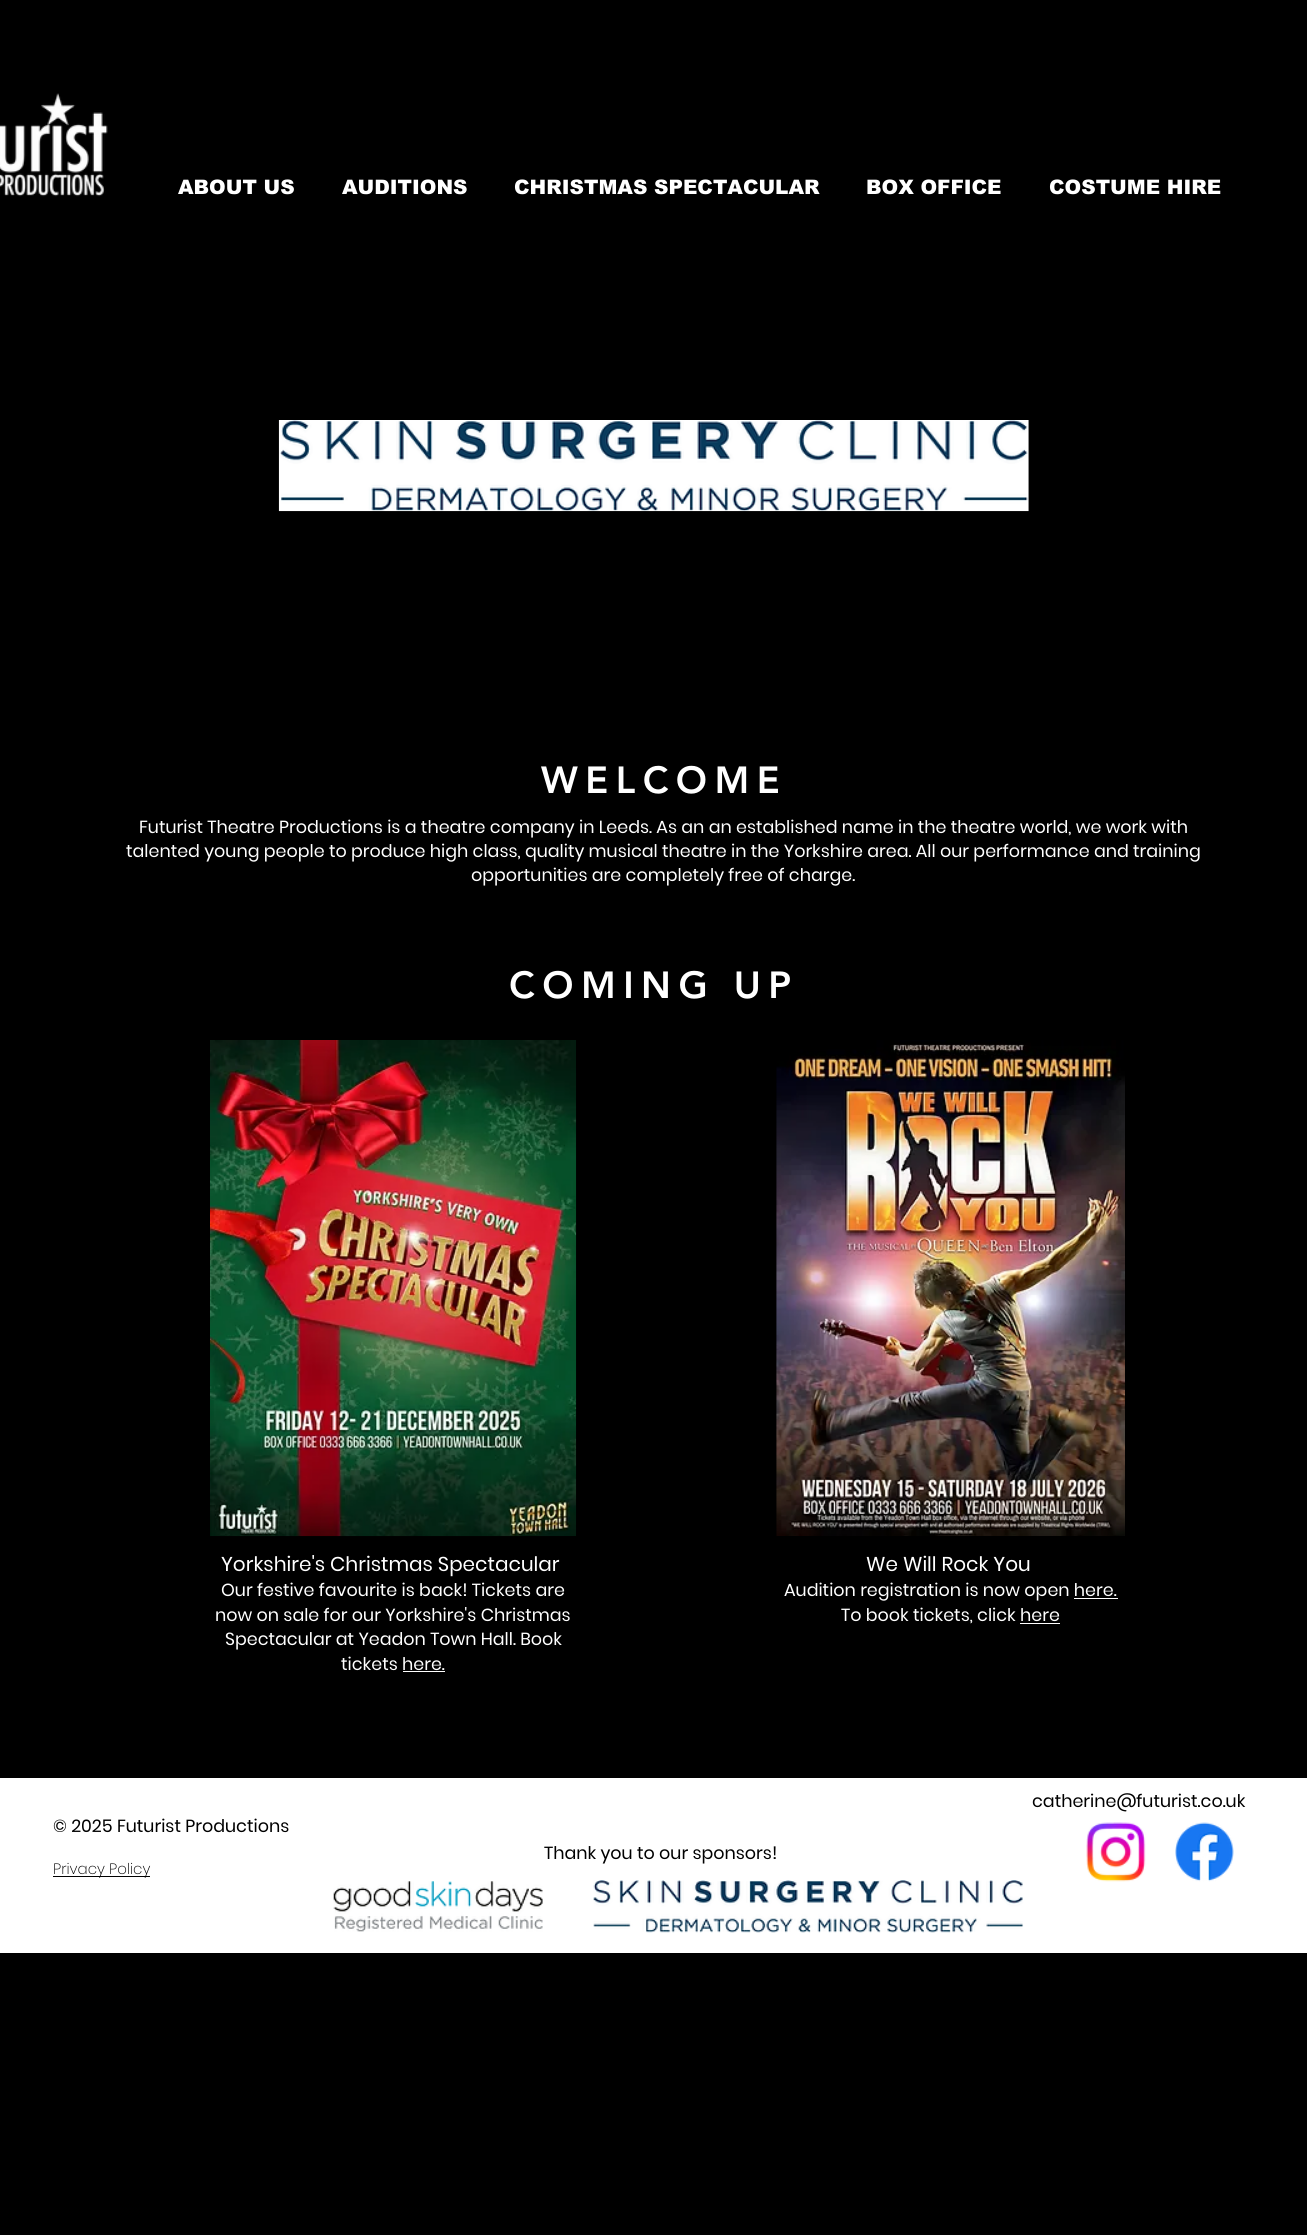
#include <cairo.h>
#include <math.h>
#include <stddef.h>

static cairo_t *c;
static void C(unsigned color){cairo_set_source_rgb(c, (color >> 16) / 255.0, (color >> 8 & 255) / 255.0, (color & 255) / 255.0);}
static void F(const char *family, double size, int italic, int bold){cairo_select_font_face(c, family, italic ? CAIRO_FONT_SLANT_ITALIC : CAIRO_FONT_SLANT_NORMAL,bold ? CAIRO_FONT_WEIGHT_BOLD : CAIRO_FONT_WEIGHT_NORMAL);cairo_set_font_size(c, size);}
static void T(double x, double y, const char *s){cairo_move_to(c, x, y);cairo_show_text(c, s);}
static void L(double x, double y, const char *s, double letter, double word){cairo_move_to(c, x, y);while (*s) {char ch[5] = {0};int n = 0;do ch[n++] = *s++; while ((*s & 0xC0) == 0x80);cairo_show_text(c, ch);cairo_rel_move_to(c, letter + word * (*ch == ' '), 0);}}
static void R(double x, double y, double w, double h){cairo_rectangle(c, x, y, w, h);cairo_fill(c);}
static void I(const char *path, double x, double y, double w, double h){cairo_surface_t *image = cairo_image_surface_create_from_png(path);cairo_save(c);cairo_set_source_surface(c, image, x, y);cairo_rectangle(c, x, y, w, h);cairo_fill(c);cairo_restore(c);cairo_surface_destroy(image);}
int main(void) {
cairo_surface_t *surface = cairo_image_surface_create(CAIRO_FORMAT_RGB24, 1307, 2235);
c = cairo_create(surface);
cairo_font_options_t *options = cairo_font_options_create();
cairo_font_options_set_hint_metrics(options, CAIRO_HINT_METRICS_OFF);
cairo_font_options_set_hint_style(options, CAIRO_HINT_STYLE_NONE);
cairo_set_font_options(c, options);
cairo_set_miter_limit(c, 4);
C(0x000000);
cairo_paint(c);
I("1.png",0,93,108,104);
F("arial Black",20,0,0);
C(0xffffff);
T(178,194,"ABOUT US");
T(342,194,"AUDITIONS");
T(514,194,"CHRISTMAS SPECTACULAR");
T(866,194,"BOX OFFICE");
T(1049,194,"COSTUME HIRE");
I("2.png",278,420,751,92);
F("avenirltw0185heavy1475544 Black",37.5,0,0);
L(541,793,"WELCOME",7.5,0);
F("Poppins",17.5,0,0);
T(139,833,"Futurist Theatre Productions is a theatre company in Leeds. As an an established name in the theatre world, we work with");
T(126,857,"talented young people to produce high class, quality musical theatre in the Yorkshire area. All our performance and training");
T(471,881,"opportunities are completely free of charge.");
F("avenirltw0185heavy1475544 Black",37.5,0,0);
L(509,998,"COMING UP",7.5,0);
I("3.png",210,1040,367,497);
I("4.png",776,1040,349,496);
F("Poppins",20,0,0);
T(221,1571,"Yorkshire's Christmas Spectacular");
F("Poppins",17.5,0,0);
T(221,1596,"Our festive favourite is back! Tickets are");
T(215,1621,"now on sale for our Yorkshire's Christmas");
T(225,1645,"Spectacular at Yeadon Town Hall. Book");
T(341,1670,"tickets here.");
R(403,1671,42,1);
F("Poppins",20,0,0);
T(866,1571,"We Will Rock You");
F("Poppins",17.5,0,0);
T(784,1596,"Audition registration is now open here.");
R(1074,1598,44,1);
T(841,1621,"To book tickets, click here");
R(1020,1623,40,1);
R(0,1778,1307,175);
C(0x000000);
T(1032,1807,"catherine@futurist.co.uk");
T(53,1832,"© 2025 Futurist Productions");
T(544,1859,"Thank you to our sponsors!");
I("5.png",1086,1822,60,60);
I("6.png",1175,1822,59,60);
R(53,1876,97,1);
F("Poppins ExtraLight",15,0,0);
T(53,1874,"Privacy Policy");
I("7.png",333,1881,210,51);
I("8.png",593,1880,431,53);
cairo_surface_write_to_png(surface, "o.png");
cairo_font_options_destroy(options);
cairo_destroy(c);
cairo_surface_destroy(surface);
return 0;
}
